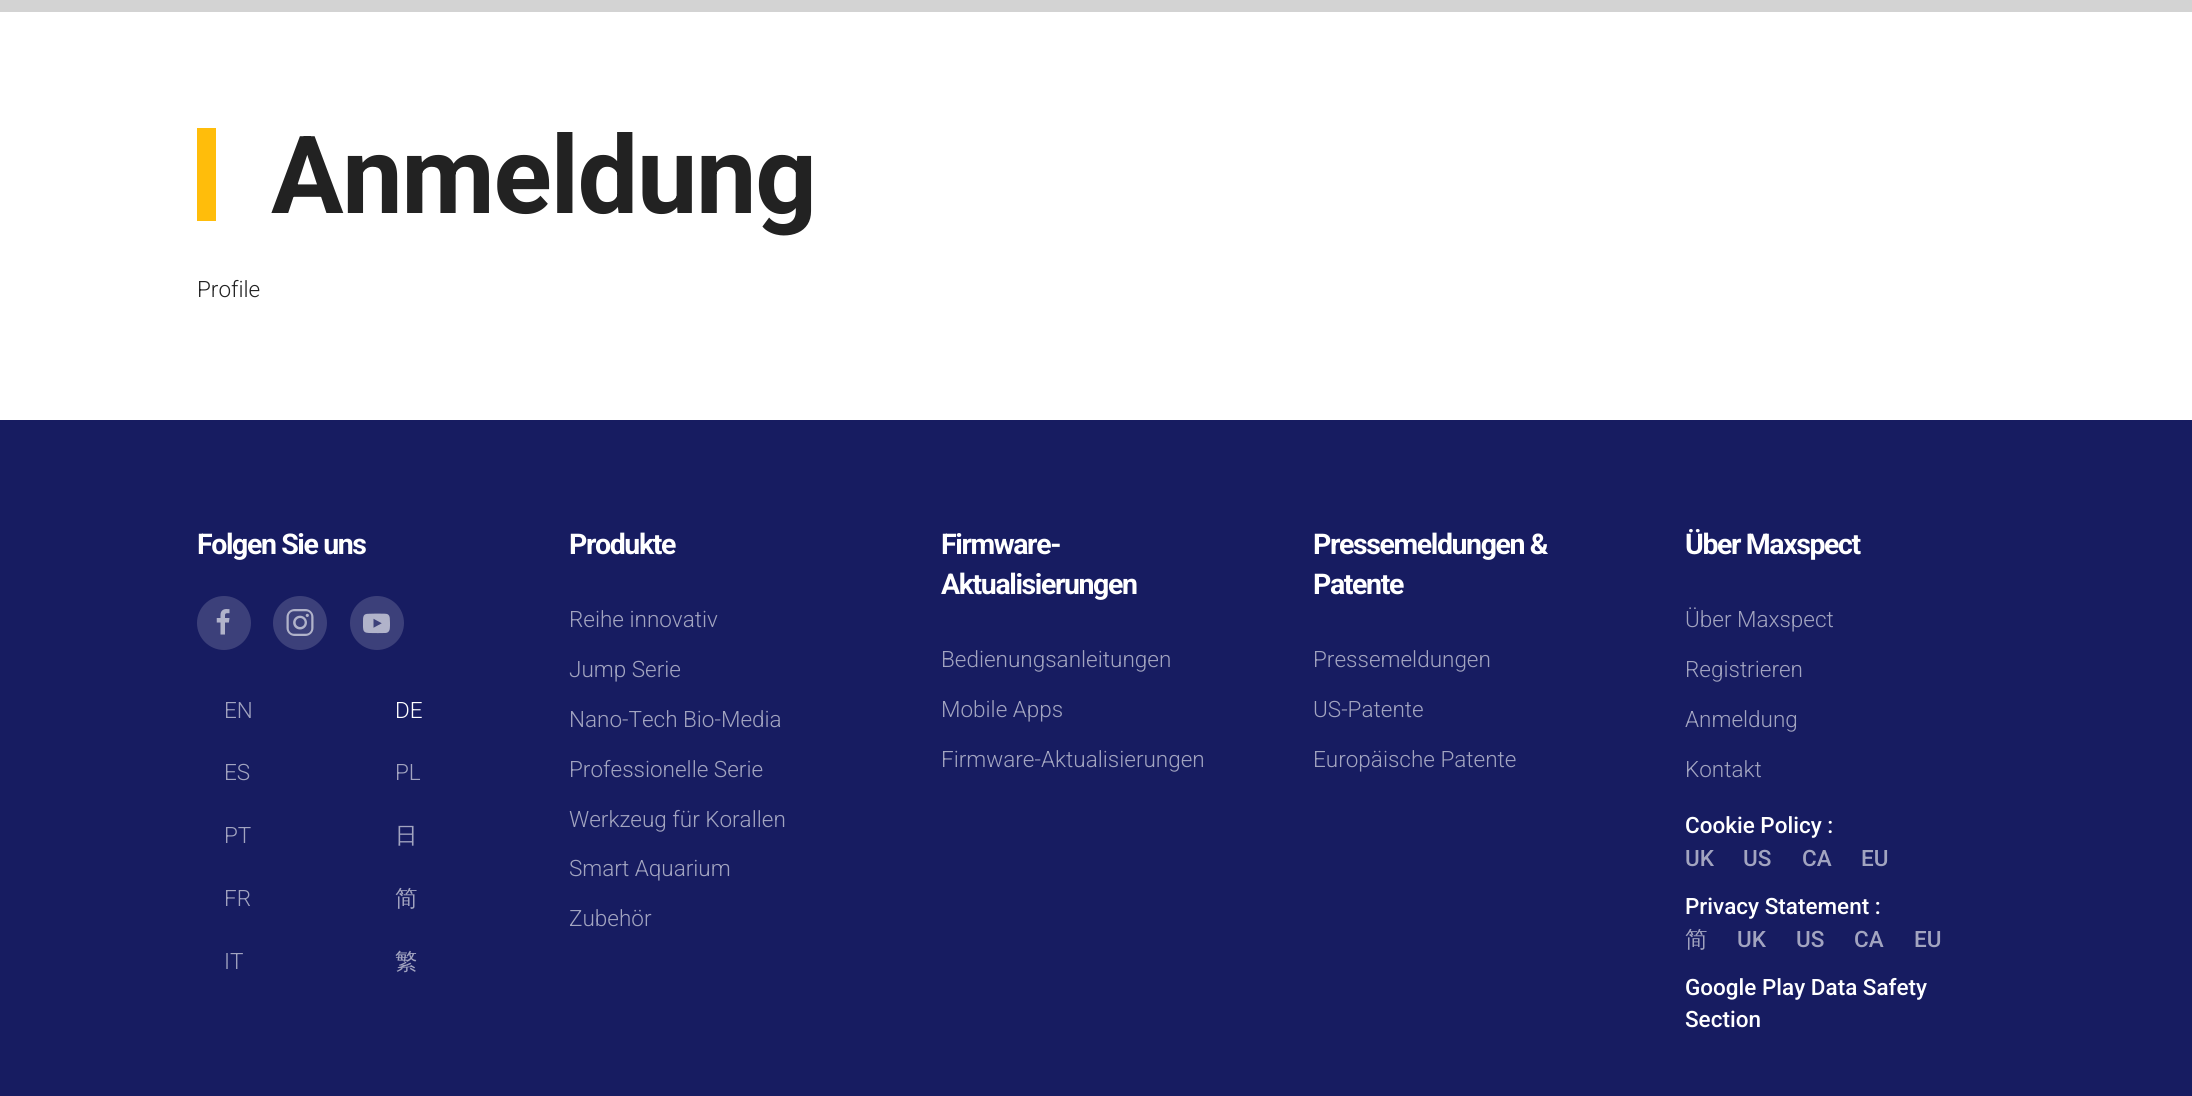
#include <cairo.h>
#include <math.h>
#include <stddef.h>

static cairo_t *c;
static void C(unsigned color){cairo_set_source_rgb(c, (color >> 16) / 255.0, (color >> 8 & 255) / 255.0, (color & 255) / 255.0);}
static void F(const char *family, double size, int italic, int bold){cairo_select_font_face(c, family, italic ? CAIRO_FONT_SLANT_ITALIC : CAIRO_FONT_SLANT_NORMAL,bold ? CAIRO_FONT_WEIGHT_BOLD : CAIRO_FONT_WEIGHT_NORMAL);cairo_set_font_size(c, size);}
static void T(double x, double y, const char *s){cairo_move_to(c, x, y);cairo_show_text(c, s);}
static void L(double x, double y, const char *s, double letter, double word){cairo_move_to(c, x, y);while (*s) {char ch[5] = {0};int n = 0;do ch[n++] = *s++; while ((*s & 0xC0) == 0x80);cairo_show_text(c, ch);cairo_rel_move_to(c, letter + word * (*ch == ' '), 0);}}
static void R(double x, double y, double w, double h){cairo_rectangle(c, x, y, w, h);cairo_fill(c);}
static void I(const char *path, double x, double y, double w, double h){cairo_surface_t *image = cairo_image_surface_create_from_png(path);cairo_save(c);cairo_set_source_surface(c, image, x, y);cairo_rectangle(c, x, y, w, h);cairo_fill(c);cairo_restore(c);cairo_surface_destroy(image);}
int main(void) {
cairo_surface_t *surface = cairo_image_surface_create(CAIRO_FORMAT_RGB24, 2192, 1096);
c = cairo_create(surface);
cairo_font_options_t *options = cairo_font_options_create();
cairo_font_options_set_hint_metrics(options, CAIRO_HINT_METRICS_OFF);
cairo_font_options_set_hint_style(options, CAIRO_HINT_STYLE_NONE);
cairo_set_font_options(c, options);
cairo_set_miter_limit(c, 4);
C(0xffffff);
cairo_paint(c);
C(0xd3d3d3);
R(0,0,2192,12);
C(0xffbd0b);
R(197,128,19,93);
F("Roboto",108,0,1);
C(0x222222);
L(271,213,"Anmeldung",-1.4,0);
F("Roboto Light",22.5,0,0);
T(197,297,"Profile");
C(0x171c61);
R(0,420,2192,676);
F("Roboto",28.5,0,1);
C(0xffffff);
L(197,554,"Folgen Sie uns",-1.4,0);
C(0x3c407a);
cairo_new_path(c);
cairo_arc(c,224,623,27,0,2 * M_PI);
cairo_fill(c);
I("1.png",216,609,14,26);
cairo_arc(c,300,623,27,0,2 * M_PI);
cairo_fill(c);
I("2.png",286,609,28,27);
cairo_arc(c,377,623,27,0,2 * M_PI);
cairo_fill(c);
I("3.png",363,613,27,21);
F("Roboto Light",22.5,0,0);
C(0xa2a4c0);
T(224,718,"EN");
C(0xffffff);
T(395,718,"DE");
C(0xa2a4c0);
T(224,780,"ES");
T(395,780,"PL");
T(224,843,"PT");
F("WenQuanYi Zen Hei Medium",22.5,0,0);
T(395,843,"日");
F("Roboto Light",22.5,0,0);
T(224,906,"FR");
F("WenQuanYi Zen Hei Medium",22.5,0,0);
T(395,906,"简");
F("Roboto Light",22.5,0,0);
T(224,969,"IT");
F("WenQuanYi Zen Hei Medium",22.5,0,0);
T(395,969,"繁");
F("Roboto",28.5,0,1);
C(0xffffff);
L(569,554,"Produkte",-1.4,0);
F("Roboto Light",22.5,0,0);
C(0xa2a4c0);
T(569,627,"Reihe innovativ");
T(569,677,"Jump Serie");
T(569,727,"Nano-Tech Bio-Media");
T(569,777,"Professionelle Serie");
T(569,827,"Werkzeug für Korallen");
T(569,876,"Smart Aquarium");
T(569,926,"Zubehör");
F("Roboto",28.5,0,1);
C(0xffffff);
L(941,554,"Firmware-",-1.4,0);
L(941,594,"Aktualisierungen",-1.4,0);
F("Roboto Light",22.5,0,0);
C(0xa2a4c0);
T(941,667,"Bedienungsanleitungen");
T(941,717,"Mobile Apps");
T(941,767,"Firmware-Aktualisierungen");
F("Roboto",28.5,0,1);
C(0xffffff);
L(1313,554,"Pressemeldungen &",-1.4,0);
L(1313,594,"Patente",-1.4,0);
F("Roboto Light",22.5,0,0);
C(0xa2a4c0);
T(1313,667,"Pressemeldungen");
T(1313,717,"US-Patente");
T(1313,767,"Europäische Patente");
F("Roboto",28.5,0,1);
C(0xffffff);
L(1685,554,"Über Maxspect",-1.4,0);
F("Roboto Light",22.5,0,0);
C(0xa2a4c0);
T(1685,627,"Über Maxspect");
T(1685,677,"Registrieren");
T(1685,727,"Anmeldung");
T(1685,777,"Kontakt");
F("Roboto Medium",22.5,0,0);
C(0xffffff);
T(1685,833,"Cookie Policy :");
C(0xa2a4c0);
T(1685,866,"UK");
T(1743,866,"US");
T(1802,866,"CA");
T(1861,866,"EU");
C(0xffffff);
T(1685,914,"Privacy Statement :");
F("WenQuanYi Zen Hei Medium",22.5,0,0);
C(0xa2a4c0);
T(1685,947,"简");
F("Roboto Medium",22.5,0,0);
T(1737,947,"UK");
T(1796,947,"US");
T(1854,947,"CA");
T(1914,947,"EU");
C(0xffffff);
T(1685,995,"Google Play Data Safety");
T(1685,1027,"Section");
cairo_surface_write_to_png(surface, "o.png");
cairo_font_options_destroy(options);
cairo_destroy(c);
cairo_surface_destroy(surface);
return 0;
}
